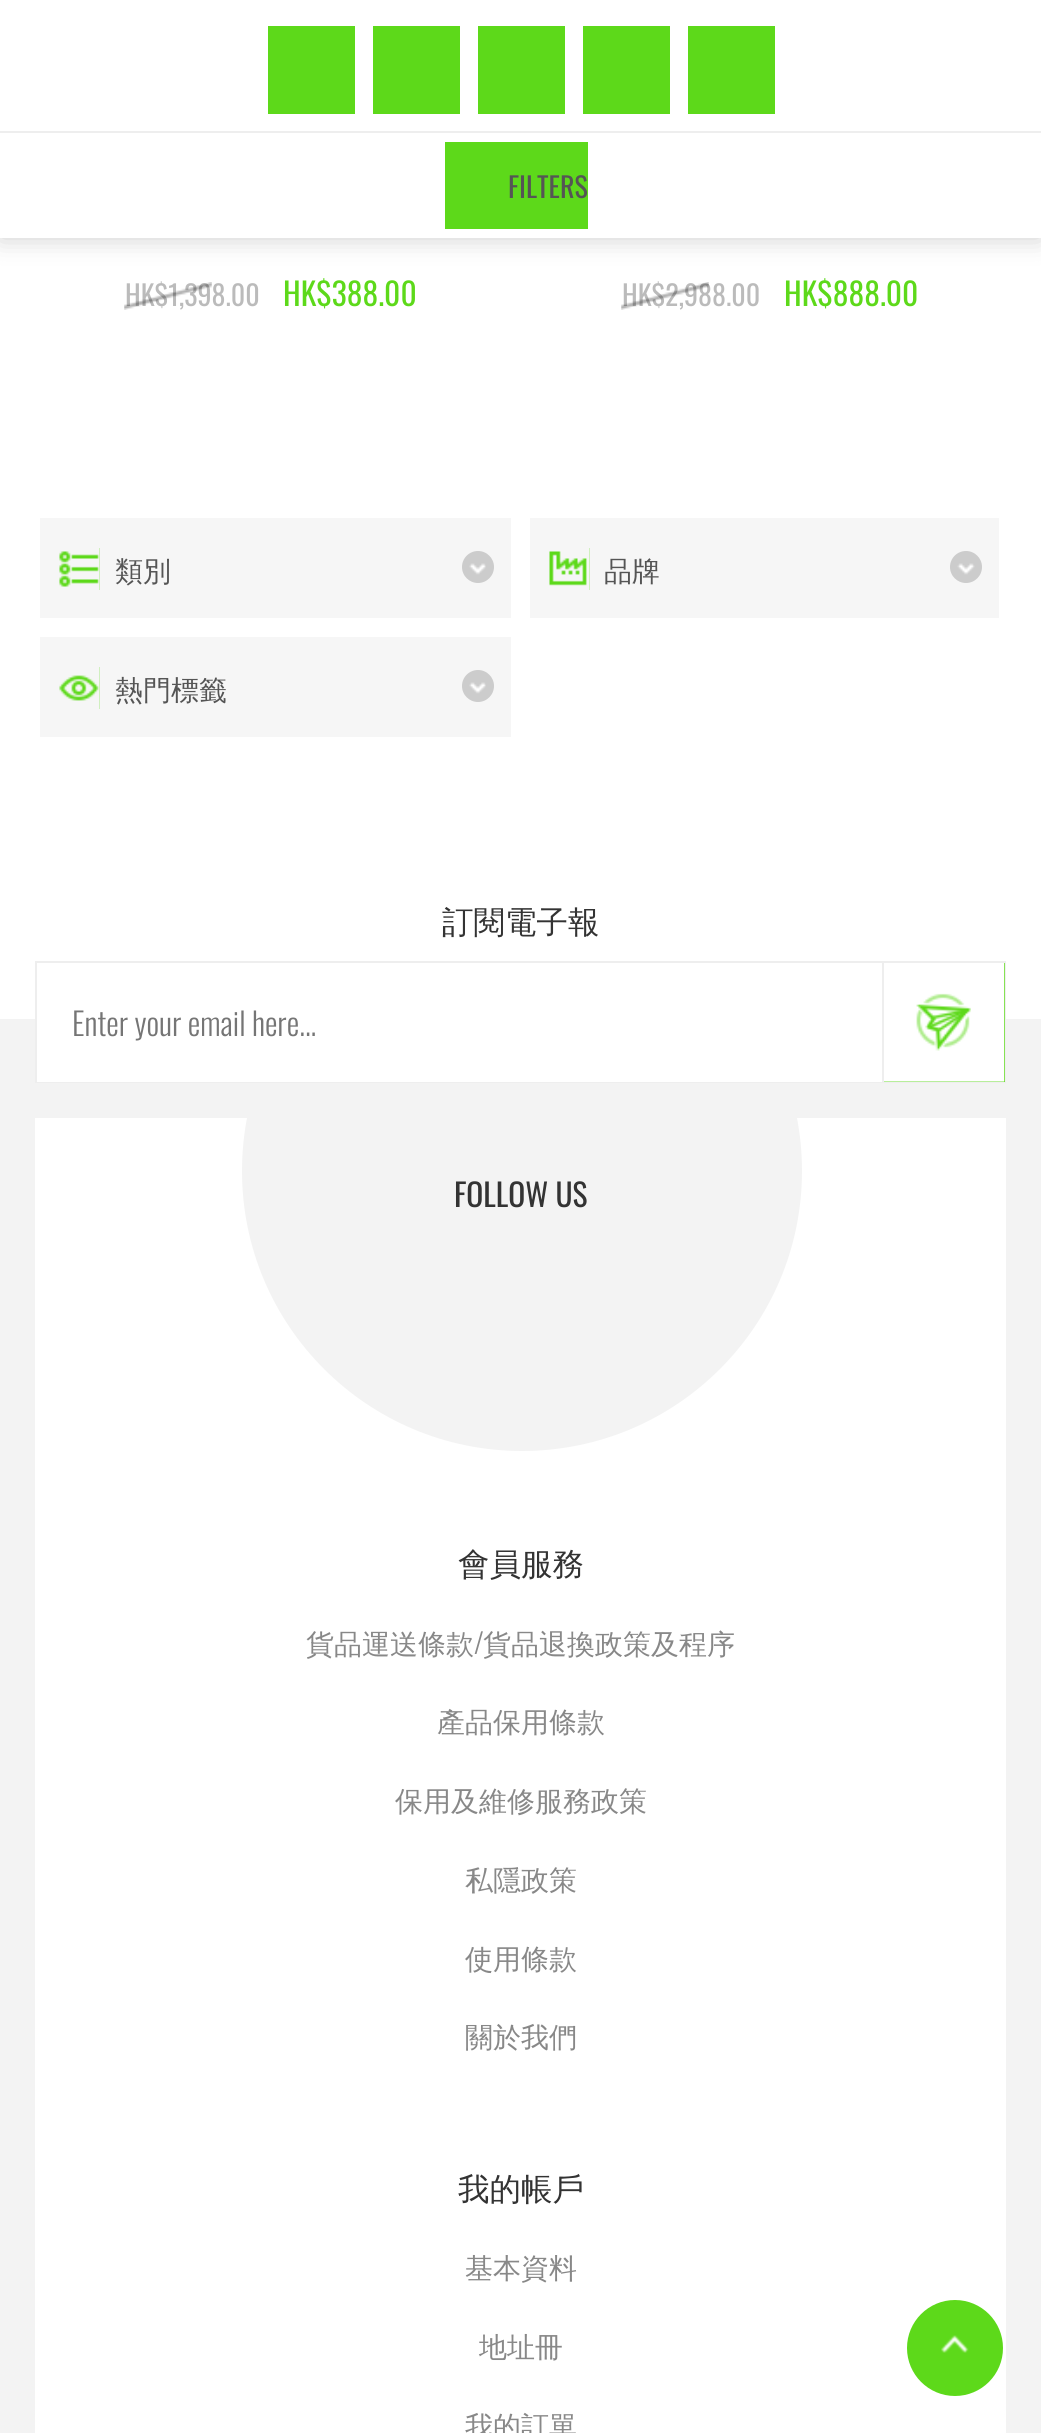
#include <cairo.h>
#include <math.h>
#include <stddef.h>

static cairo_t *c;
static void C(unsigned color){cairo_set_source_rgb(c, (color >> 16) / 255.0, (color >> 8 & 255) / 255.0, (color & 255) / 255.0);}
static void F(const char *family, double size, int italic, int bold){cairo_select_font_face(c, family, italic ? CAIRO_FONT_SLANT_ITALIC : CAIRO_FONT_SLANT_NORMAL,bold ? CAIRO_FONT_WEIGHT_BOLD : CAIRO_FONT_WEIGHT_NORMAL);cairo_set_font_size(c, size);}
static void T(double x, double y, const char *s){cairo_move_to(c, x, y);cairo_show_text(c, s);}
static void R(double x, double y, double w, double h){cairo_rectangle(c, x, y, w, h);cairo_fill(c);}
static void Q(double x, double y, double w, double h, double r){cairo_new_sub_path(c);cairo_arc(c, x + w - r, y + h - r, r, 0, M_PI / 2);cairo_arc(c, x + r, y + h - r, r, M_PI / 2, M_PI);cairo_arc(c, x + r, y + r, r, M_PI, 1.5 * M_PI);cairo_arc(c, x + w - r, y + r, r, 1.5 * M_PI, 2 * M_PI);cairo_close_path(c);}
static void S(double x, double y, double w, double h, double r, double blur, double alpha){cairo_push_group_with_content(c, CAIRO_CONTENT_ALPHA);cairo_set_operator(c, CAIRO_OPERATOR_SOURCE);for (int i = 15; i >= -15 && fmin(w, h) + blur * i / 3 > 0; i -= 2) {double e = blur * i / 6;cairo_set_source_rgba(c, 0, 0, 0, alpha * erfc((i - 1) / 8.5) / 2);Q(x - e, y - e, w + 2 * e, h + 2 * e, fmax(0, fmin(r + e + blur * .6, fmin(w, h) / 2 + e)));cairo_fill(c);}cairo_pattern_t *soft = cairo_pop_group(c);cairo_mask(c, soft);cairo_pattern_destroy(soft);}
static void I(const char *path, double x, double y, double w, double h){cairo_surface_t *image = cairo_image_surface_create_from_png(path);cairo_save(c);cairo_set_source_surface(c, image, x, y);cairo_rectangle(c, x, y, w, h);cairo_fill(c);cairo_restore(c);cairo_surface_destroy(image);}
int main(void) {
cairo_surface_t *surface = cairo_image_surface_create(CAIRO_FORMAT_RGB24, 1041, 2433);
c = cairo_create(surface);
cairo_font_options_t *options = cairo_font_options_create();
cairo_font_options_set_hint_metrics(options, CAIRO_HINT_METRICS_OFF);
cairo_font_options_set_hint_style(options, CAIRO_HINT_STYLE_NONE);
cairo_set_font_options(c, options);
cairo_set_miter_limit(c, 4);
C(0xffffff);
cairo_paint(c);
C(0x000000);
S(0,0,1041,238,0,13,.2);
C(0xffffff);
R(0,0,1041,238);
C(0x5dd91a);
R(268,26,87,88);
R(373,26,87,88);
R(478,26,87,88);
R(583,26,87,88);
R(688,26,87,88);
C(0xeeeeee);
R(0,131,1041,2);
C(0x5dd91a);
R(445,142,143,87);
F("Oswald",28,0,0);
C(0x555555);
T(508,198,"FILTERS");
C(0xbbbbbb);
T(125,306,"HK$1,398.00");
I("1.png",124,282,88,28);
F("Oswald",31.5,0,0);
C(0x5dd91a);
T(283,306,"HK$388.00");
F("Oswald",28,0,0);
C(0xbbbbbb);
T(622,306,"HK$2,988.00");
I("2.png",621,282,88,28);
F("Oswald",31.5,0,0);
C(0x5dd91a);
T(784,306,"HK$888.00");
C(0xf6f6f6);
R(40,518,471,100);
C(0x5dd91a);
R(59,548,41,42);
I("3.png",58,548,42,42);
F("WenQuanYi Zen Hei Medium",28,0,0);
C(0x555555);
T(115,581,"類別");
C(0xcccccc);
cairo_new_path(c);
cairo_arc(c,478,567,16,0,2 * M_PI);
cairo_fill(c);
I("4.png",469,563,17,12);
C(0xf6f6f6);
R(530,518,469,100);
C(0x5dd91a);
R(549,548,41,42);
I("5.png",548,548,42,42);
C(0x555555);
T(604,581,"品牌");
C(0xcccccc);
cairo_new_path(c);
cairo_arc(c,966,567,16,0,2 * M_PI);
cairo_fill(c);
I("6.png",957,563,18,12);
C(0xf6f6f6);
R(40,637,471,100);
C(0x5dd91a);
R(59,667,41,42);
I("7.png",58,667,42,42);
C(0x555555);
T(115,700,"熱門標籤");
C(0xcccccc);
cairo_new_path(c);
cairo_arc(c,478,686,16,0,2 * M_PI);
cairo_fill(c);
I("4.png",469,682,17,12);
C(0xf3f3f3);
R(0,1019,1041,1414);
F("WenQuanYi Zen Hei Medium",31.5,0,0);
C(0x333333);
T(442,933,"訂閱電子報");
C(0xffffff);
R(35,1118,971,1315);
cairo_save(c);
cairo_rectangle(c,35,1118,971,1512);
cairo_clip(c);
C(0xf3f3f3);
cairo_arc(c,522,1171,280,0,2 * M_PI);
cairo_fill(c);
cairo_restore(c);
cairo_rectangle(c,36,962,969,120);
C(0xeeeeee);
cairo_stroke(c);
C(0xffffff);
R(37,1019,845,63);
F("Oswald Light",31.5,0,0);
C(0x757575);
T(72,1036,"Enter your email here...");
C(0x5dd91a);
R(884,963,121,119);
I("8.png",884,963,121,119);
C(0xeeeeee);
R(882,963,2,119);
F("Oswald",31.5,0,0);
C(0x333333);
T(454,1207,"FOLLOW US");
F("WenQuanYi Zen Hei Medium",31.5,0,0);
T(458,1575,"會員服務");
F("WenQuanYi Zen Hei Medium",28,0,0);
C(0x888888);
T(306,1654,"貨品運送條款");
F("Oswald Light",28,0,0);
T(474,1654,"/");
F("WenQuanYi Zen Hei Medium",28,0,0);
T(483,1654,"貨品退換政策及程序");
T(437,1732,"產品保用條款");
T(395,1811,"保用及維修服務政策");
T(465,1890,"私隱政策");
T(465,1969,"使用條款");
T(465,2047,"關於我們");
F("WenQuanYi Zen Hei Medium",31.5,0,0);
C(0x333333);
T(458,2200,"我的帳戶");
F("WenQuanYi Zen Hei Medium",28,0,0);
C(0x888888);
T(465,2278,"基本資料");
T(479,2357,"地址冊");
T(465,2436,"我的訂單");
C(0x5dd91a);
cairo_new_path(c);
cairo_arc(c,955,2348,48,0,2 * M_PI);
cairo_fill(c);
I("9.png",941,2335,28,18);
cairo_surface_write_to_png(surface, "o.png");
cairo_font_options_destroy(options);
cairo_destroy(c);
cairo_surface_destroy(surface);
return 0;
}
